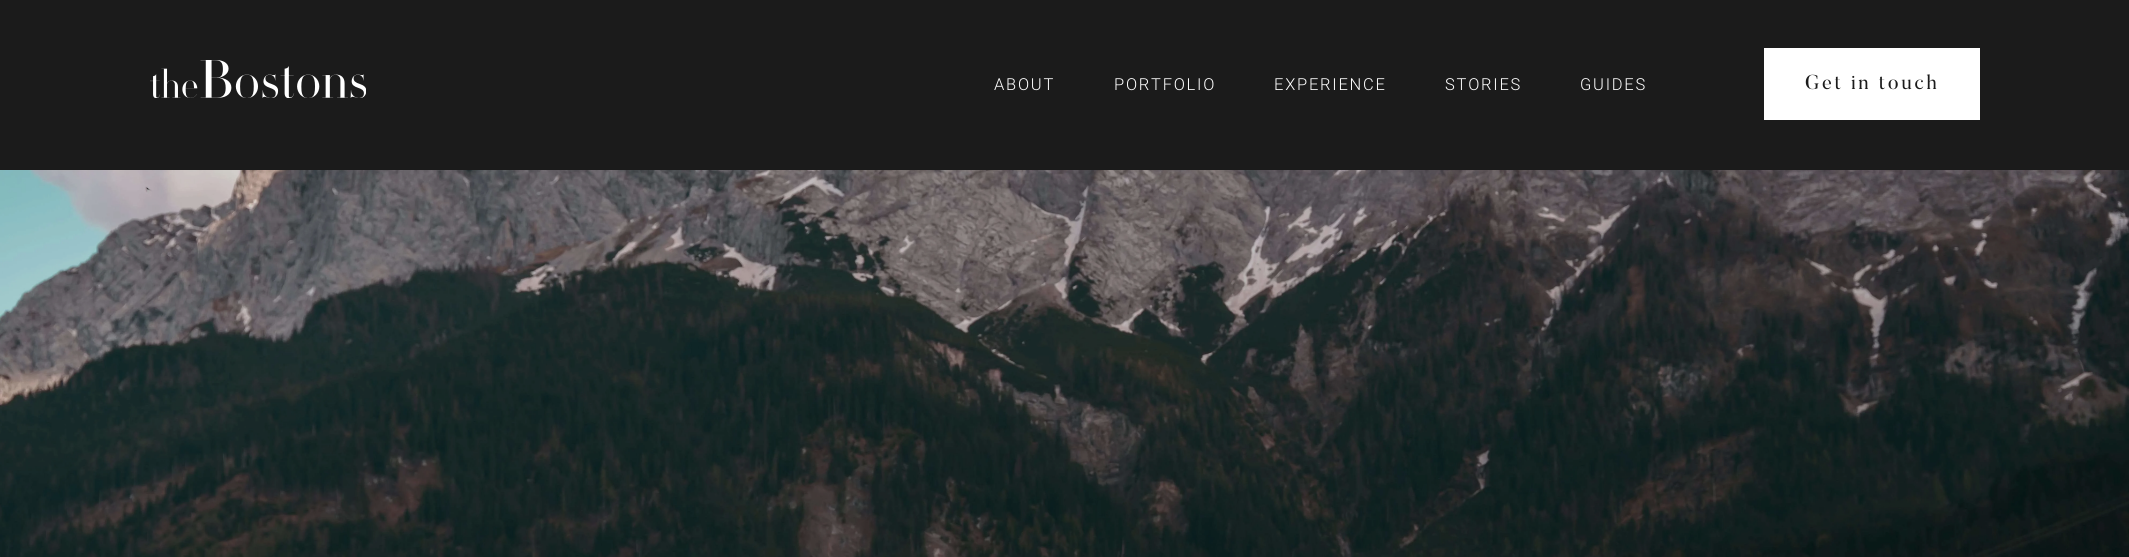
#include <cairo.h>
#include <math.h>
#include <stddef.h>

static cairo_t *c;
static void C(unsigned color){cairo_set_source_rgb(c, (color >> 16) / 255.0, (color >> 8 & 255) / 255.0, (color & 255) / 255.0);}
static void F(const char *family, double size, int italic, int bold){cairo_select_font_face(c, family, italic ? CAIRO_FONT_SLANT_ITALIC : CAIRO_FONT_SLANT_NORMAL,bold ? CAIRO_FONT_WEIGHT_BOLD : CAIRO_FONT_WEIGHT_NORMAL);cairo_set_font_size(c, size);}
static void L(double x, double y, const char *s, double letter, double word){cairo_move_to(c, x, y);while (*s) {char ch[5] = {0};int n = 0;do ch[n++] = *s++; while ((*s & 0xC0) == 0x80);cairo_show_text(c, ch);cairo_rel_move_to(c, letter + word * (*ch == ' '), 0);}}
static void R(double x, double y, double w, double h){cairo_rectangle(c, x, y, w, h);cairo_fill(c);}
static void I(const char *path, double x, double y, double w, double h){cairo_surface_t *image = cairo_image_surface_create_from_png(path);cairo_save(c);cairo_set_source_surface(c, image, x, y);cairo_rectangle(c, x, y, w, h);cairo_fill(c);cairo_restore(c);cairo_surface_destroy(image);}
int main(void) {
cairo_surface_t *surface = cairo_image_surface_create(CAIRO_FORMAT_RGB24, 2129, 557);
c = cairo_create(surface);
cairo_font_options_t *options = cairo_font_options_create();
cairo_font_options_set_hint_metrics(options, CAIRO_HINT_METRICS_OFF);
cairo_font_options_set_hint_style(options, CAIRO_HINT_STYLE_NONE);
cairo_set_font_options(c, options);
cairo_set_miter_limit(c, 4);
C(0xffffff);
cairo_paint(c);
C(0x1b1b1b);
R(0,0,2129,170);
I("1.png",150,60,216,38);
F("Roboto Light",16.5,0,0);
C(0xffffff);
L(994,90,"ABOUT",1.75,0);
L(1114,90,"PORTFOLIO",1.75,0);
L(1274,90,"EXPERIENCE",1.75,0);
L(1445,90,"STORIES",1.75,0);
L(1580,90,"GUIDES",1.75,0);
R(1764,48,216,72);
F("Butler",20,0,0);
C(0x1b1b1b);
L(1805,89,"Get in touch",2.6,0);
I("2.png",0,170,2129,387);
cairo_surface_write_to_png(surface, "o.png");
cairo_font_options_destroy(options);
cairo_destroy(c);
cairo_surface_destroy(surface);
return 0;
}
